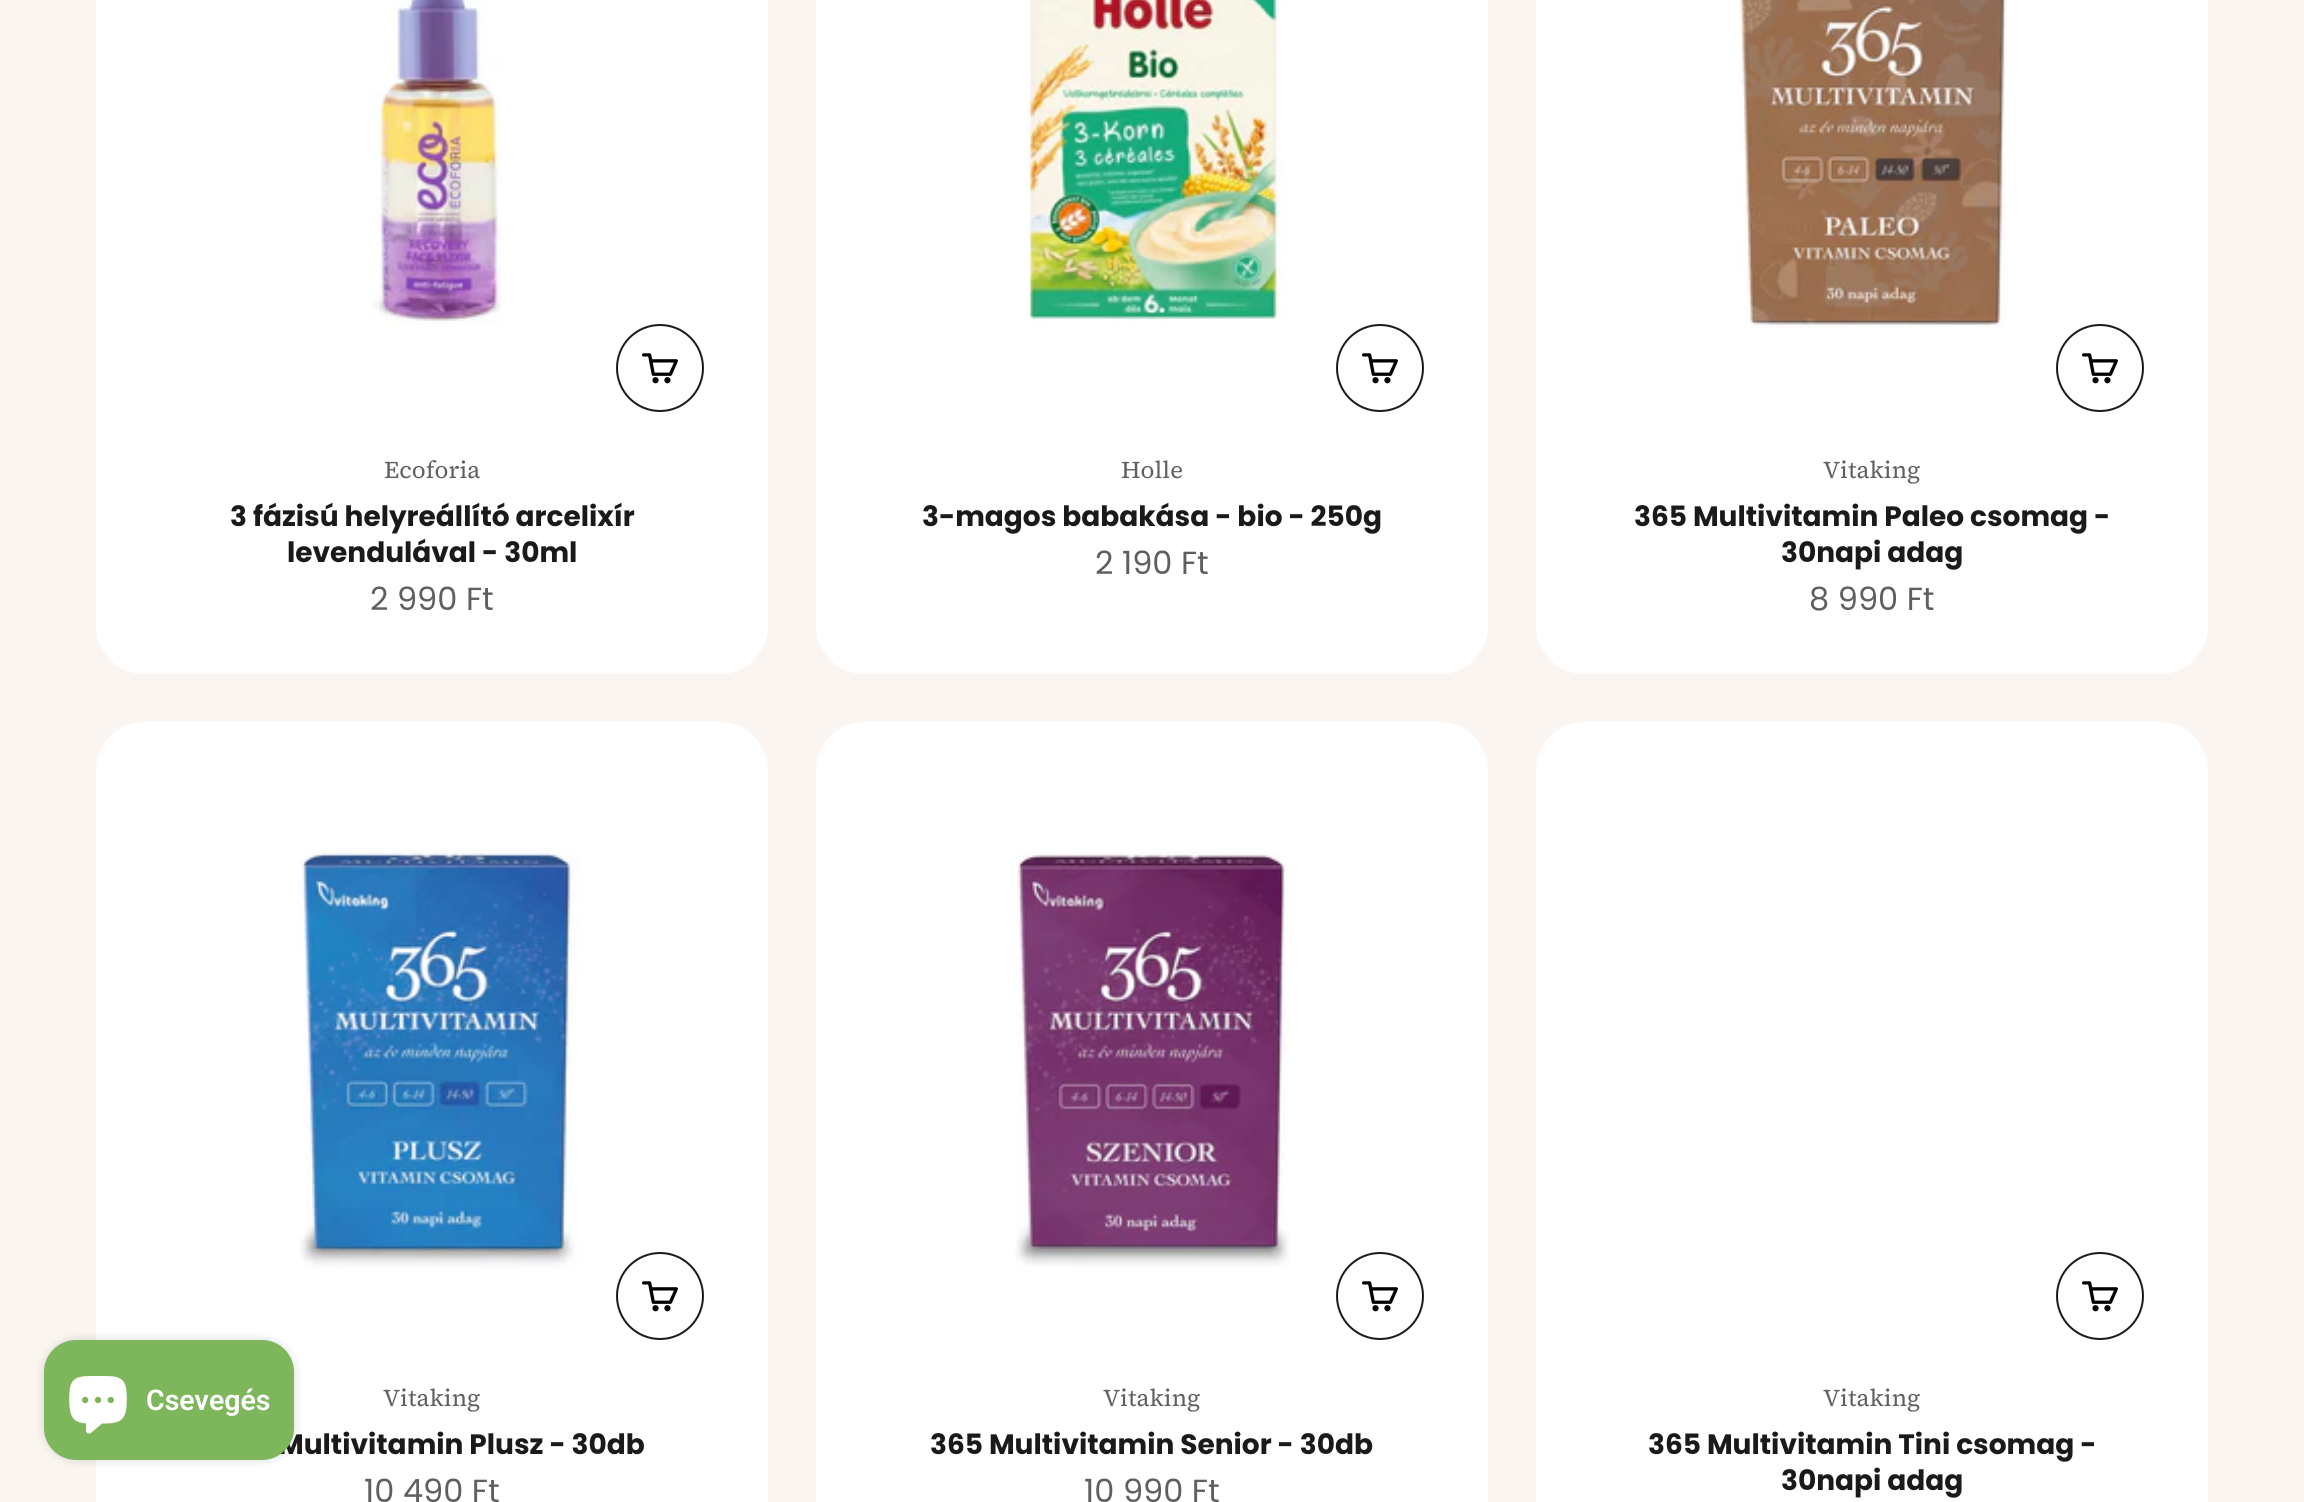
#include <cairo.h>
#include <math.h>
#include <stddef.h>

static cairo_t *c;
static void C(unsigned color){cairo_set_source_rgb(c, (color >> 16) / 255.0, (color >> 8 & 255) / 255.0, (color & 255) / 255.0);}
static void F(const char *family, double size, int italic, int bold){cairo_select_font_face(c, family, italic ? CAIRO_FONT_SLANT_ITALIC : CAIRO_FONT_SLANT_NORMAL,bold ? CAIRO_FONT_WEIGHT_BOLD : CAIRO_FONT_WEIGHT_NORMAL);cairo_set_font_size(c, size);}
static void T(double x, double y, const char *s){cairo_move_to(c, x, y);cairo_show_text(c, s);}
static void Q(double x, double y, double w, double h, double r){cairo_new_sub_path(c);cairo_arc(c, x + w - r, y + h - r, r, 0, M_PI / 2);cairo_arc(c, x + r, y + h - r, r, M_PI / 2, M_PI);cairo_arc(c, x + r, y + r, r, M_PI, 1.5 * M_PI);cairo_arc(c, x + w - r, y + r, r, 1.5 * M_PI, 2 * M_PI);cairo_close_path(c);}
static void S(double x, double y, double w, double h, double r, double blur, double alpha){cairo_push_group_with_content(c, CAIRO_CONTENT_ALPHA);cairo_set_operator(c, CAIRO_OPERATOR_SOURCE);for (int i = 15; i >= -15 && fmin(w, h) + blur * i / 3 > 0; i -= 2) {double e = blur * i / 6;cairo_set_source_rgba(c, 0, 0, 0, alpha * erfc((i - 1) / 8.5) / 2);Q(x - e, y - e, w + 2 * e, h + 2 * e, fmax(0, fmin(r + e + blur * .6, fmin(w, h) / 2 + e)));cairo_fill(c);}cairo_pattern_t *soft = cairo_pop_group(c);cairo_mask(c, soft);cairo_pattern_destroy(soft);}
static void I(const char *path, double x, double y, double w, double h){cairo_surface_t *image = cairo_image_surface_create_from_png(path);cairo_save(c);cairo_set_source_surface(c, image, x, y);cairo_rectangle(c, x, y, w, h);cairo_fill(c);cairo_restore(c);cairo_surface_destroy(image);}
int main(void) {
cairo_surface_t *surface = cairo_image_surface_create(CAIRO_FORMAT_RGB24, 2304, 1502);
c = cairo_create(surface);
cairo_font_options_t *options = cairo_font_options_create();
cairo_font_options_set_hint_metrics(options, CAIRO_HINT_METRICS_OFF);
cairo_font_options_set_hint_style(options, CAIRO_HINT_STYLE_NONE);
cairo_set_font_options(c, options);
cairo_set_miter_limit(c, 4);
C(0xfaf5f0);
cairo_paint(c);
C(0xffffff);
Q(96,722,672,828,48);
cairo_fill(c);
C(0x000000);
S(44,1340,250,120,32,5,.15);
F("Poppins",28,0,1);
C(0x1a1a1a);
T(278,1454,"Multivitamin Plusz - 30db");
C(0x7eb65c);
Q(44,1340,250,120,32);
cairo_fill(c);
I("1.png",69,1376,58,58);
F("Roboto SemiBold",28.5,0,0);
C(0xffffff);
T(146,1410,"Csevegés");
Q(96,-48,672,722,48);
cairo_fill(c);
I("2.png",372,0,130,325);
cairo_arc(c,660,368,43,0,2 * M_PI);
C(0x1a1a1a);
cairo_stroke(c);
I("3.png",642,353,36,31);
F("Source Serif 4",24,0,0);
C(0x5f5f5f);
T(384,478,"Ecoforia");
F("Poppins",28,0,1);
C(0x1a1a1a);
T(230,526,"3 fázisú helyreállító arcelixír");
T(287,562,"levendulával - 30ml");
F("Poppins",32,0,0);
C(0x5f5f5f);
T(370,610,"2 990 Ft");
C(0xffffff);
Q(816,-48,672,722,48);
cairo_fill(c);
I("4.png",1026,0,258,323);
cairo_arc(c,1380,368,43,0,2 * M_PI);
C(0x1a1a1a);
cairo_stroke(c);
I("3.png",1362,353,36,31);
F("Source Serif 4",24,0,0);
C(0x5f5f5f);
T(1121,478,"Holle");
F("Poppins",28,0,1);
C(0x1a1a1a);
T(922,526,"3-magos babakása - bio - 250g");
F("Poppins",32,0,0);
C(0x5f5f5f);
T(1095,574,"2 190 Ft");
C(0xffffff);
Q(1536,-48,672,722,48);
cairo_fill(c);
I("5.png",1738,0,269,329);
cairo_arc(c,2100,368,43,0,2 * M_PI);
C(0x1a1a1a);
cairo_stroke(c);
I("3.png",2082,353,36,31);
F("Source Serif 4",24,0,0);
C(0x5f5f5f);
T(1823,478,"Vitaking");
F("Poppins",28,0,1);
C(0x1a1a1a);
T(1634,526,"365 Multivitamin Paleo csomag -");
T(1781,562,"30napi adag");
F("Poppins",32,0,0);
C(0x5f5f5f);
T(1809,610,"8 990 Ft");
I("6.png",298,850,282,418);
cairo_arc(c,660,1296,43,0,2 * M_PI);
C(0x1a1a1a);
cairo_stroke(c);
I("3.png",642,1281,36,31);
F("Source Serif 4",24,0,0);
C(0x5f5f5f);
T(383,1406,"Vitaking");
F("Poppins",32,0,0);
T(364,1502,"10 490 Ft");
C(0xffffff);
Q(816,722,672,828,48);
cairo_fill(c);
I("7.png",1015,851,275,416);
cairo_arc(c,1380,1296,43,0,2 * M_PI);
C(0x1a1a1a);
cairo_stroke(c);
I("3.png",1362,1281,36,31);
F("Source Serif 4",24,0,0);
C(0x5f5f5f);
T(1103,1406,"Vitaking");
F("Poppins",28,0,1);
C(0x1a1a1a);
T(930,1454,"365 Multivitamin Senior - 30db");
F("Poppins",32,0,0);
C(0x5f5f5f);
T(1084,1502,"10 990 Ft");
C(0xffffff);
Q(1536,722,672,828,48);
cairo_fill(c);
cairo_arc(c,2100,1296,43,0,2 * M_PI);
C(0x1a1a1a);
cairo_stroke(c);
I("3.png",2082,1281,36,31);
F("Source Serif 4",24,0,0);
C(0x5f5f5f);
T(1823,1406,"Vitaking");
F("Poppins",28,0,1);
C(0x1a1a1a);
T(1648,1454,"365 Multivitamin Tini csomag -");
T(1781,1490,"30napi adag");
cairo_surface_write_to_png(surface, "o.png");
cairo_font_options_destroy(options);
cairo_destroy(c);
cairo_surface_destroy(surface);
return 0;
}
